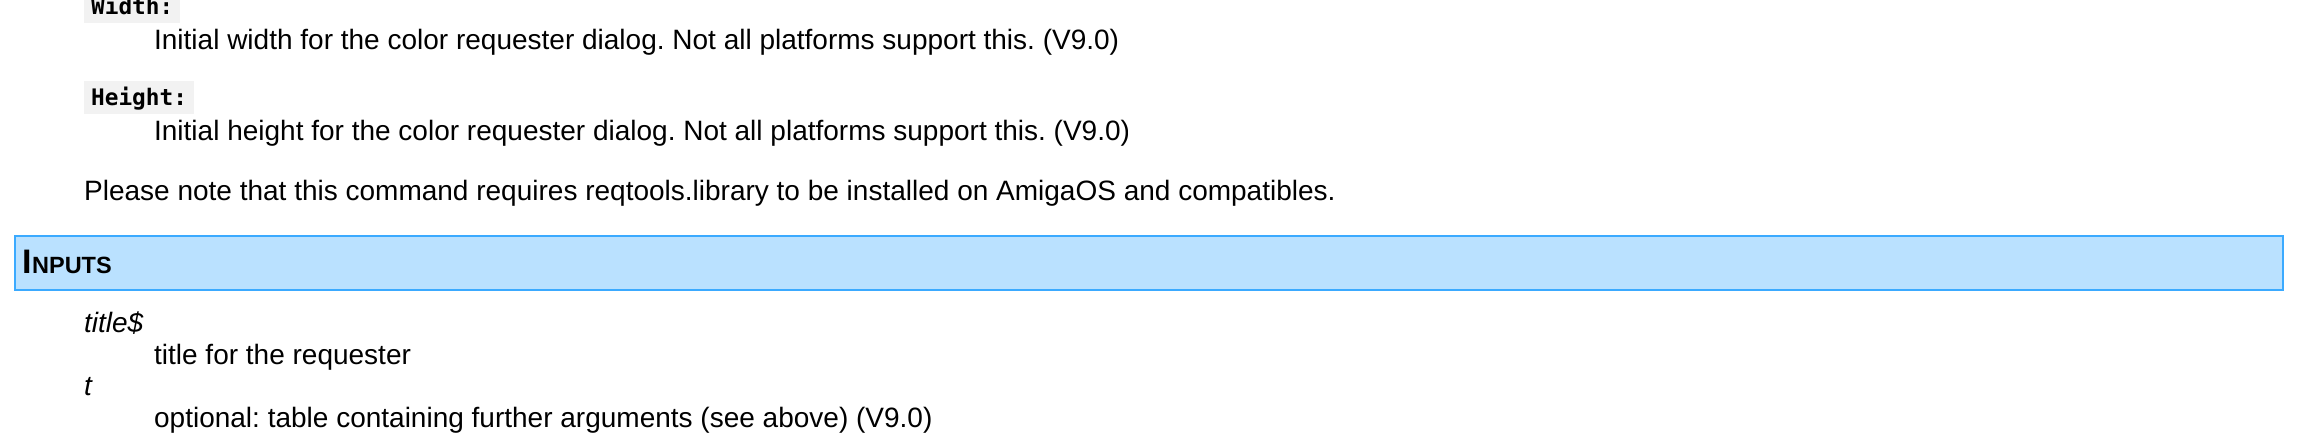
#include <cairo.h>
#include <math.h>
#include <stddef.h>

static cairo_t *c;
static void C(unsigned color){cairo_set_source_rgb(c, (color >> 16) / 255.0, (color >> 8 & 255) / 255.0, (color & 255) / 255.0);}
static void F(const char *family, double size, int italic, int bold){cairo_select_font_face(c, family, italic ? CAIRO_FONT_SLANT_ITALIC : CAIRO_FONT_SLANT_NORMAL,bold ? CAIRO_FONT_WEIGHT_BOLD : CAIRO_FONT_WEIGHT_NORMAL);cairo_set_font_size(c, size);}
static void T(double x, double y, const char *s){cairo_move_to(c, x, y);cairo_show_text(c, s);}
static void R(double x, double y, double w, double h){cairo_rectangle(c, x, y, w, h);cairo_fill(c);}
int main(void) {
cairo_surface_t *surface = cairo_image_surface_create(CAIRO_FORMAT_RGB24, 2297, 445);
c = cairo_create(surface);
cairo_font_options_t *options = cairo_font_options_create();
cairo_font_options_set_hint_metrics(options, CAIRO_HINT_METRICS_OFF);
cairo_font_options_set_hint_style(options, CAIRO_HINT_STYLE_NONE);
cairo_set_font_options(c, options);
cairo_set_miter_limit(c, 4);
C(0xffffff);
cairo_paint(c);
C(0xf2f2f2);
R(84,0,96,23);
F("DejaVu Sans Mono",22.75,0,1);
C(0x000000);
T(91,14,"Width:");
F("Liberation Sans",28,0,0);
T(154,49,"Initial width for the color requester dialog. Not all platforms support this. (V9.0)");
C(0xf2f2f2);
R(84,81,110,33);
F("DejaVu Sans Mono",22.75,0,1);
C(0x000000);
T(91,105,"Height:");
F("Liberation Sans",28,0,0);
T(154,140,"Initial height for the color requester dialog. Not all platforms support this. (V9.0)");
T(84,200,"Please note that this command requires reqtools.library to be installed on AmigaOS and compatibles.");
C(0xbae1ff);
cairo_rectangle(c,15,236,2268,54);
cairo_fill_preserve(c);
C(0x3baaff);
cairo_stroke(c);
F("Liberation Sans",34,0,1);
C(0x000000);
T(22,273,"I");
F("Liberation Sans",23.5,0,1);
T(32,273,"NPUTS");
F("Liberation Sans",28,1,0);
T(84,332,"title$");
F("Liberation Sans",28,0,0);
T(154,364,"title for the requester");
F("Liberation Sans",28,1,0);
T(84,395,"t");
F("Liberation Sans",28,0,0);
T(154,427,"optional: table containing further arguments (see above) (V9.0)");
cairo_surface_write_to_png(surface, "o.png");
cairo_font_options_destroy(options);
cairo_destroy(c);
cairo_surface_destroy(surface);
return 0;
}
